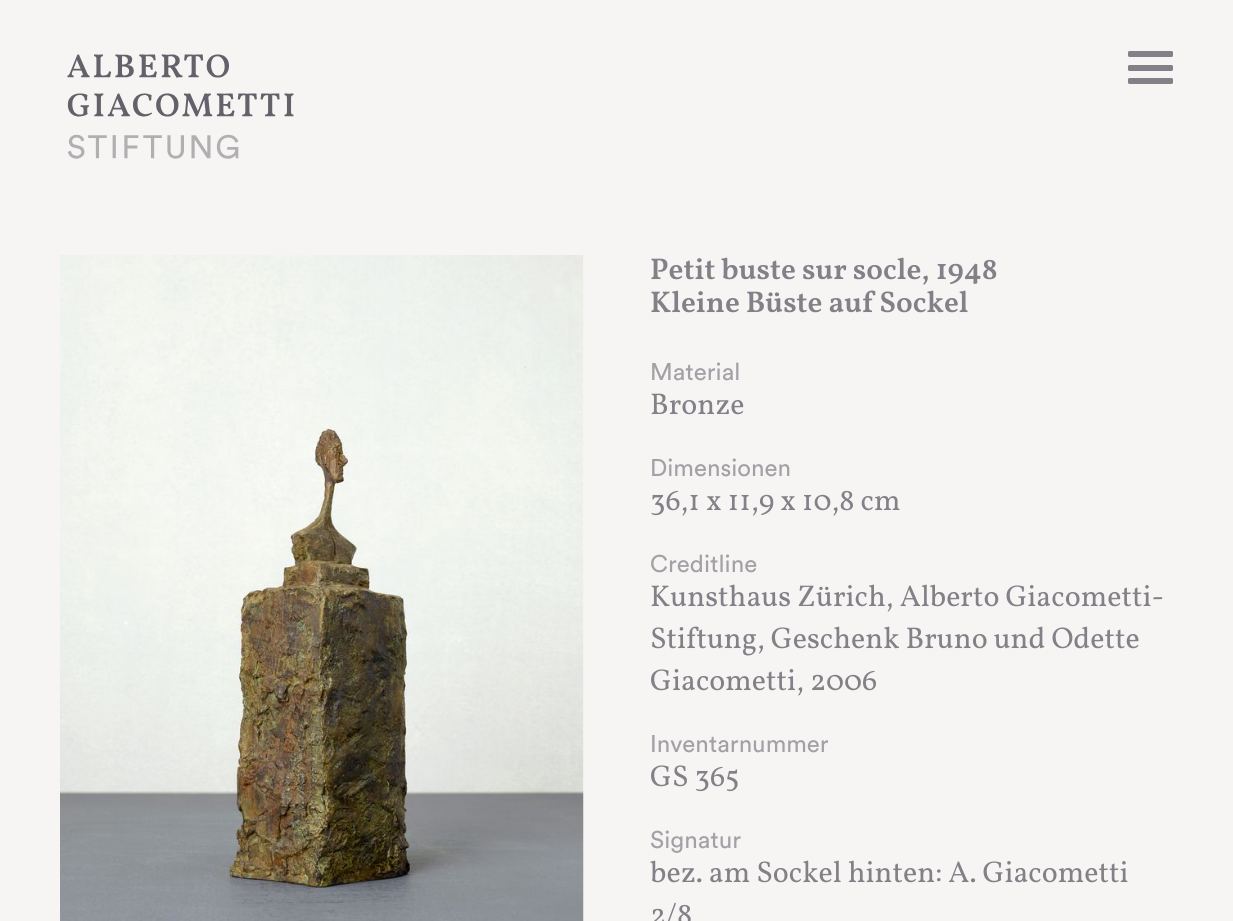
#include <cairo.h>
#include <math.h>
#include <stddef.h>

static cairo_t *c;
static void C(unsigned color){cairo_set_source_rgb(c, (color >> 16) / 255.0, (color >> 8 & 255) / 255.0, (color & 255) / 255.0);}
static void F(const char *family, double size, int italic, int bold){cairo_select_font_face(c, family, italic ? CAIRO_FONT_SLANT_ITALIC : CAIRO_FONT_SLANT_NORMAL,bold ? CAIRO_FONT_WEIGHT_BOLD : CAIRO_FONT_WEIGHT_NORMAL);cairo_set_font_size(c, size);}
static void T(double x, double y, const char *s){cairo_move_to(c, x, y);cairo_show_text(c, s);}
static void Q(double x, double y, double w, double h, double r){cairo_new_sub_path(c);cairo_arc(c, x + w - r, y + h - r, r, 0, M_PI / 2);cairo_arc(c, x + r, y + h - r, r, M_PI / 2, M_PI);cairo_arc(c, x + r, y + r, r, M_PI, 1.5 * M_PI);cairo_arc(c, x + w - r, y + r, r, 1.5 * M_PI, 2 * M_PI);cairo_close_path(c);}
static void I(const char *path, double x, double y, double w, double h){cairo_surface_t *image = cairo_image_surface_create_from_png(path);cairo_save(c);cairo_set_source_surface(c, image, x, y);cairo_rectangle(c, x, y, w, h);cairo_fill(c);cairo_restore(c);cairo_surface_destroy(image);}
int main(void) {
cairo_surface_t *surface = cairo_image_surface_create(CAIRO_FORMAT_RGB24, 1233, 921);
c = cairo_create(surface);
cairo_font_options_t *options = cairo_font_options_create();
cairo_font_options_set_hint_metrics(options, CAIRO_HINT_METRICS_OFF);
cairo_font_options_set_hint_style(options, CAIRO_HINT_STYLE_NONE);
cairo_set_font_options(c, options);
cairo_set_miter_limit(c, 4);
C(0xf7f5f4);
cairo_paint(c);
I("1.png",67,54,227,105);
C(0x828188);
Q(1128,51,45,6,1.5);
cairo_fill(c);
Q(1128,65,45,6,1.5);
cairo_fill(c);
Q(1128,78,45,6,1.5);
cairo_fill(c);
I("2.png",60,255,524,666);
F("Vollkorn SemiBold",30,0,0);
T(650,279,"Petit buste sur socle, 1948");
T(650,312,"Kleine Büste auf Sockel");
F("Circular",24,0,0);
C(0xa1a1a6);
T(650,380,"Material");
F("Vollkorn",30,0,0);
C(0x828188);
T(650,414,"Bronze");
F("Circular",24,0,0);
C(0xa1a1a6);
T(650,476,"Dimensionen");
F("Vollkorn",30,0,0);
C(0x828188);
T(650,510,"36,1 x 11,9 x 10,8 cm");
F("Circular",24,0,0);
C(0xa1a1a6);
T(650,572,"Creditline");
F("Vollkorn",30,0,0);
C(0x828188);
T(650,606,"Kunsthaus Zürich, Alberto Giacometti-");
T(650,648,"Stiftung, Geschenk Bruno und Odette");
T(650,690,"Giacometti, 2006");
F("Circular",24,0,0);
C(0xa1a1a6);
T(650,752,"Inventarnummer");
F("Vollkorn",30,0,0);
C(0x828188);
T(650,786,"GS 365");
F("Circular",24,0,0);
C(0xa1a1a6);
T(650,848,"Signatur");
F("Vollkorn",30,0,0);
C(0x828188);
T(650,882,"bez. am Sockel hinten: A. Giacometti");
T(650,924,"2/8");
cairo_surface_write_to_png(surface, "o.png");
cairo_font_options_destroy(options);
cairo_destroy(c);
cairo_surface_destroy(surface);
return 0;
}
